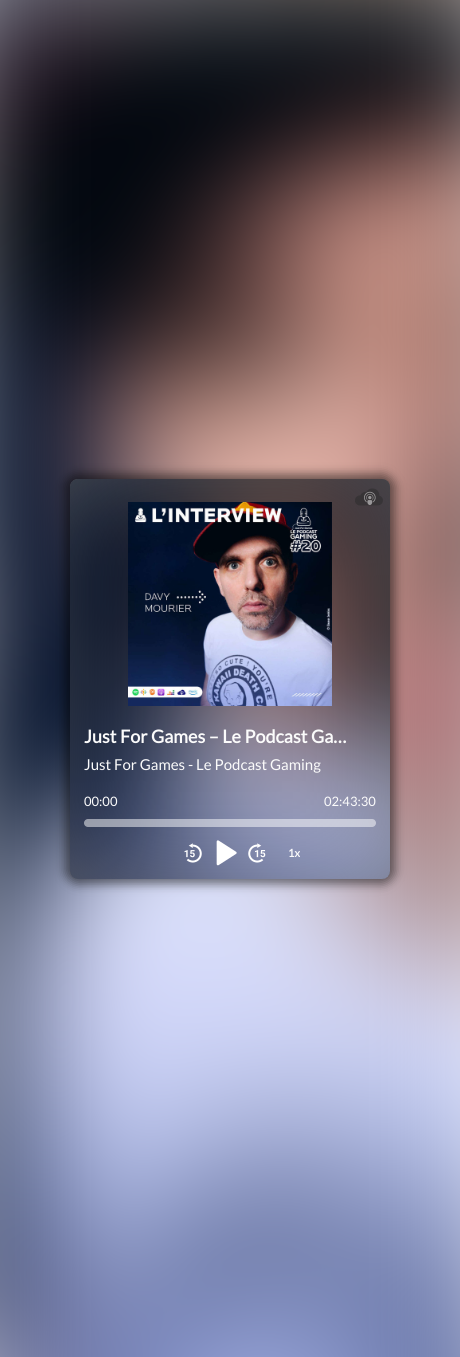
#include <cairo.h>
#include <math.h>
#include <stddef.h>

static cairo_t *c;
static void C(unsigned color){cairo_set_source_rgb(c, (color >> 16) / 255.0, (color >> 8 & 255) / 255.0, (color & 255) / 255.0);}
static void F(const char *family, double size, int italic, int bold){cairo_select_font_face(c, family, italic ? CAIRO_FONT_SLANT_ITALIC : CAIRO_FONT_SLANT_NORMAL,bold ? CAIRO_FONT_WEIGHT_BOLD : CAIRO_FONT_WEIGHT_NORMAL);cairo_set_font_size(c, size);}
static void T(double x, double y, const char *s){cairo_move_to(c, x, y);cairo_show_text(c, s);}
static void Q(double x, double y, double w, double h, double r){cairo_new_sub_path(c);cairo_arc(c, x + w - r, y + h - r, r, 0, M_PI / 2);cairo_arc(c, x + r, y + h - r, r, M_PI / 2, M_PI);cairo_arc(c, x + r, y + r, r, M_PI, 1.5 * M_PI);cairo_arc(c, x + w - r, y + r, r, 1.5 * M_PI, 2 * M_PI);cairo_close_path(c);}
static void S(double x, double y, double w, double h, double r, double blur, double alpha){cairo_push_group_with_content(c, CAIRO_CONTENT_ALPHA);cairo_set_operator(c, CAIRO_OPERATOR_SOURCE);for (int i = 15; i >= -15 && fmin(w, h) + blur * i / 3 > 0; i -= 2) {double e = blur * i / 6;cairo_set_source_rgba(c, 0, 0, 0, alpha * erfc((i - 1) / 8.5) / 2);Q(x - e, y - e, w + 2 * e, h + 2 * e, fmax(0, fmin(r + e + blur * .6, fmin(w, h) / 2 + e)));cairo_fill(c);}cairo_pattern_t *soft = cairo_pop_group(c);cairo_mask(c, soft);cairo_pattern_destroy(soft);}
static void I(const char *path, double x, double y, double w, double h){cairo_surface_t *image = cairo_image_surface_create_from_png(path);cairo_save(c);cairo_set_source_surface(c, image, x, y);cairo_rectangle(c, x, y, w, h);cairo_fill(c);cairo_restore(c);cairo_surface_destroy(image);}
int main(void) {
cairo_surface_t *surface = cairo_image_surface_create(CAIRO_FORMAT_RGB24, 460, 1357);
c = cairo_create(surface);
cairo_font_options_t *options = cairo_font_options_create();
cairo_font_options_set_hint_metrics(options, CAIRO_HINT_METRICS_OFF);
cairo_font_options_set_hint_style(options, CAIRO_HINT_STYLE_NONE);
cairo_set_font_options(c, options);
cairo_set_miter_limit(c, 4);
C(0xffffff);
cairo_paint(c);
I("1.png",0,0,460,1357);
C(0x000000);
S(65,474,330,410,13,5,.5);
C(0x666666);
Q(70,479,320,400,8);
cairo_fill(c);
I("2.png",70,479,320,400);
cairo_set_source_rgba(c,0,0,0,0.1);
Q(70,479,320,400,8);
cairo_fill(c);
I("3.png",355,488,28,18);
I("4.png",128,502,204,204);
F("Lato",18,0,1);
C(0xfbfbfb);
T(84,743,"Just For Games – Le Podcast Ga…");
F("Lato",15,0,0);
T(84,770,"Just For Games - Le Podcast Gaming");
F("Lato",13,0,0);
T(84,806,"00:00");
T(324,806,"02:43:30");
cairo_set_source_rgba(c,1,1,1,0.5);
Q(84,819,292,8,4);
cairo_fill(c);
I("5.png",184,843,18,20);
I("6.png",216,840,21,26);
I("7.png",248,843,18,20);
F("Lato",11,0,1);
C(0xfbfbfb);
T(288,857,"1x");
cairo_surface_write_to_png(surface, "o.png");
cairo_font_options_destroy(options);
cairo_destroy(c);
cairo_surface_destroy(surface);
return 0;
}
